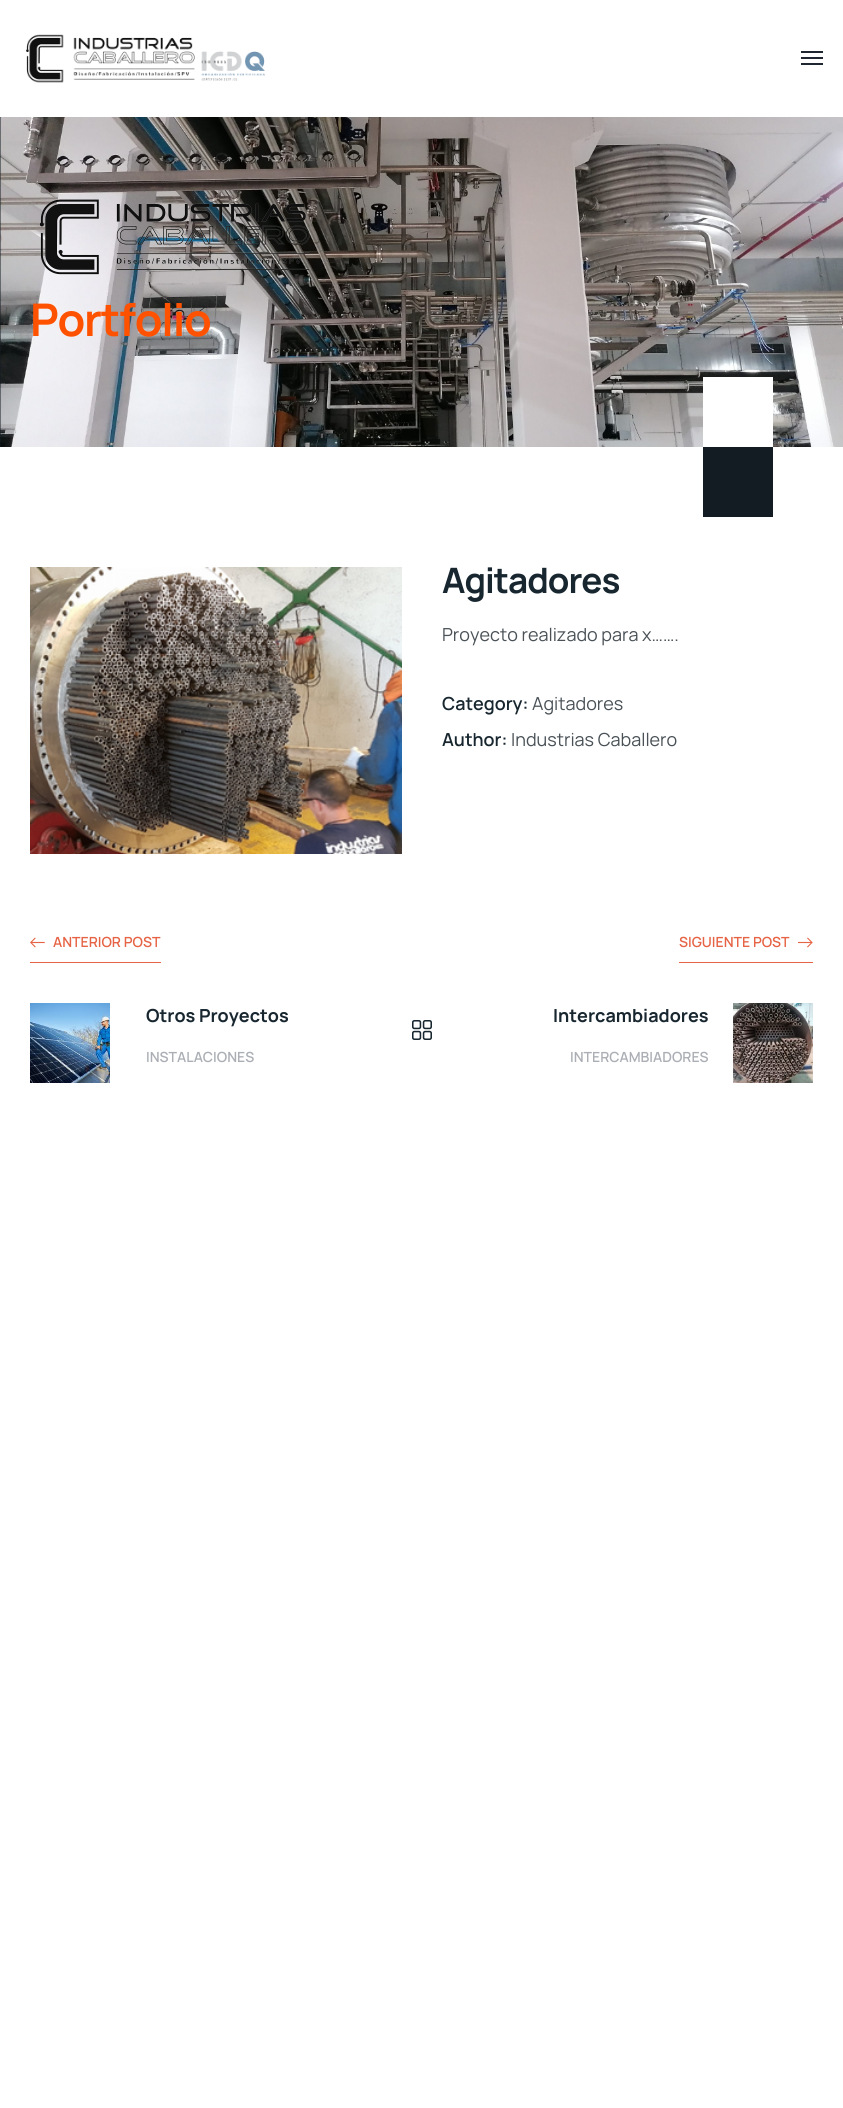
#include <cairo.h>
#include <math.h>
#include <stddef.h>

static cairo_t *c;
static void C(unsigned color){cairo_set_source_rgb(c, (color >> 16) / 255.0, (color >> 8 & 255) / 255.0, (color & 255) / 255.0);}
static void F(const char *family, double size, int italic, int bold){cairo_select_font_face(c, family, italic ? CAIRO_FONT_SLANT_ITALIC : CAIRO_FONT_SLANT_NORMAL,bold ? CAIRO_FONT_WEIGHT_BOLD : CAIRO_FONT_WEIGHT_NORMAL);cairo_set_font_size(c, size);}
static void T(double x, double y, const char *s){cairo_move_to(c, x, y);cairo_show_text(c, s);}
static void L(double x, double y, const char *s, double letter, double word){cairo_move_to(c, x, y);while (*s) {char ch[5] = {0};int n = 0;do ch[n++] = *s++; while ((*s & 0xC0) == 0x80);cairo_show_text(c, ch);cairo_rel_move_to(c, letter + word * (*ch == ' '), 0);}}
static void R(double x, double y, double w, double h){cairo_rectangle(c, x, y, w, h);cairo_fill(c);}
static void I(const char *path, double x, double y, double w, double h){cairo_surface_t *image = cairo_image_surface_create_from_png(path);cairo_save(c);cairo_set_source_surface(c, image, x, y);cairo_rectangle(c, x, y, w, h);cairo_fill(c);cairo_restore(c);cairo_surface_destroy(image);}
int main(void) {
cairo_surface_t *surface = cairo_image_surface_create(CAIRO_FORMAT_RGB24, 843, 2108);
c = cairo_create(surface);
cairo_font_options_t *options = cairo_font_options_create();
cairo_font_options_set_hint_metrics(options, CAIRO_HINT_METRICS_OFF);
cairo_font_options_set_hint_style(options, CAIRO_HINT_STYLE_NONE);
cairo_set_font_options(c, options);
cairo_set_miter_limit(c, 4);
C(0xffffff);
cairo_paint(c);
I("1.png",26,34,239,49);
C(0x1f2531);
R(801,51,22,2);
R(801,57,22,2);
R(801,63,22,2);
C(0x121c22);
R(0,117,1,330);
I("2.png",0,117,843,330);
I("3.png",39,199,271,76);
F("Manrope",45,0,1);
C(0xff5200);
L(30,336,"Portfolio",-1.25,0);
C(0xffffff);
R(703,377,70,70);
C(0x121c22);
R(703,447,70,70);
I("4.png",30,567,372,287);
F("Manrope",35,0,1);
C(0x17262f);
L(442,593,"Agitadores",-1,0);
F("Manrope",18,0,0);
C(0x4a5257);
T(442,641,"Proyecto realizado para x…….");
F("Manrope SemiBold",18,0,0);
C(0x17262f);
T(442,710,"Category:");
F("Manrope",18,0,0);
C(0x4a5257);
T(532,710,"Agitadores");
F("Manrope SemiBold",18,0,0);
C(0x17262f);
T(442,746,"Author:");
F("Manrope",18,0,0);
C(0x4a5257);
T(511,746,"Industrias Caballero");
C(0xe66445);
R(30,962,131,1);
I("5.png",30,937,15,11);
F("Manrope SemiBold",14,0,0);
T(53,947,"ANTERIOR POST");
I("6.png",30,1003,80,80);
F("Manrope",18,0,1);
C(0x17262f);
T(146,1022,"Otros Proyectos");
F("Manrope SemiBold",14,0,0);
C(0xabafb5);
T(146,1062,"INSTALACIONES");
I("7.png",412,1020,20,20);
C(0xe66445);
R(679,962,134,1);
T(679,947,"SIGUIENTE POST");
I("8.png",798,937,15,11);
F("Manrope",18,0,1);
C(0x17262f);
T(553,1022,"Intercambiadores");
F("Manrope SemiBold",14,0,0);
C(0xabafb5);
T(570,1062,"INTERCAMBIADORES");
I("9.png",733,1003,80,80);
cairo_surface_write_to_png(surface, "o.png");
cairo_font_options_destroy(options);
cairo_destroy(c);
cairo_surface_destroy(surface);
return 0;
}
